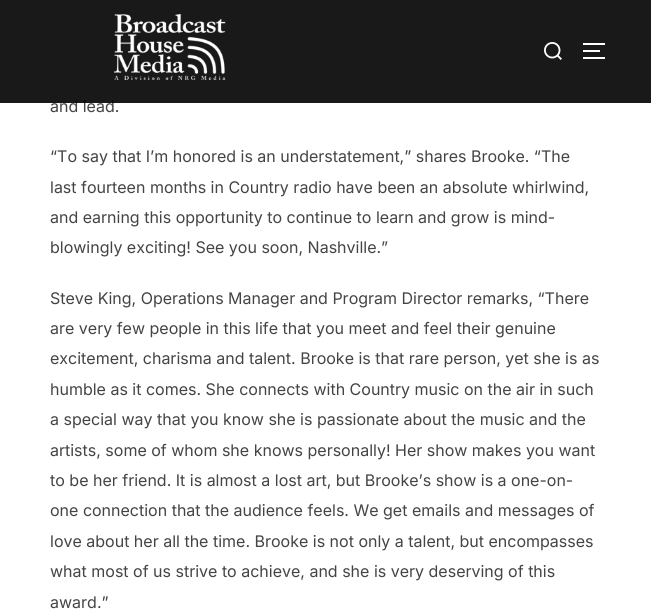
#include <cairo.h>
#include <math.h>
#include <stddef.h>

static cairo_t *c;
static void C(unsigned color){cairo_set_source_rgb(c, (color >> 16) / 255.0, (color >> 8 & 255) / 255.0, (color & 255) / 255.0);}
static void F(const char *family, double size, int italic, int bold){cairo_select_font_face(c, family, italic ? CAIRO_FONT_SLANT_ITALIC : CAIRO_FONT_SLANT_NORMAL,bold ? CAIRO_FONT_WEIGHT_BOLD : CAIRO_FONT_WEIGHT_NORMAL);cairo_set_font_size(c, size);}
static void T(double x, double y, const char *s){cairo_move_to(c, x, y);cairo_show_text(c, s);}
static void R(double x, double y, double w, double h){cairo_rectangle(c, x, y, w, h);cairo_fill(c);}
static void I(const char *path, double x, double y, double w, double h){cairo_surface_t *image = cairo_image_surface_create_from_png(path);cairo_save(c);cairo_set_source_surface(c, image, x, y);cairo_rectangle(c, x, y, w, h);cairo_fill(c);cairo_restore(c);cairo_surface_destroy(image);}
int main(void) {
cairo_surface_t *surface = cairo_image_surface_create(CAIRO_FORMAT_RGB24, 651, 609);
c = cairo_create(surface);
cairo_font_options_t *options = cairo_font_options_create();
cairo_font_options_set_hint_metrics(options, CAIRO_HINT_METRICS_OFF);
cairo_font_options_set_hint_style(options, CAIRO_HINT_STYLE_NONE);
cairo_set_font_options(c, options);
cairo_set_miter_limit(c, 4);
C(0xffffff);
cairo_paint(c);
F("Inter",16,0,0);
C(0x444444);
T(50,112,"and lead.");
cairo_set_source_rgba(c,0,0,0,0.9);
R(0,0,651,103);
I("1.png",114,14,112,66);
I("2.png",544,42,18,18);
C(0xffffff);
R(583,43,22,2);
R(583,50,17,2);
R(583,57,22,2);
C(0x444444);
T(50,162,"“To say that I’m honored is an understatement,” shares Brooke. “The");
T(50,193,"last fourteen months in Country radio have been an absolute whirlwind,");
T(50,223,"and earning this opportunity to continue to learn and grow is mind-");
T(50,253,"blowingly exciting! See you soon, Nashville.”");
T(50,304,"Steve King, Operations Manager and Program Director remarks, “There");
T(50,334,"are very few people in this life that you meet and feel their genuine");
T(50,364,"excitement, charisma and talent. Brooke is that rare person, yet she is as");
T(50,395,"humble as it comes. She connects with Country music on the air in such");
T(50,425,"a special way that you know she is passionate about the music and the");
T(50,456,"artists, some of whom she knows personally! Her show makes you want");
T(50,486,"to be her friend. It is almost a lost art, but Brooke’s show is a one-on-");
T(50,516,"one connection that the audience feels. We get emails and messages of");
T(50,547,"love about her all the time. Brooke is not only a talent, but encompasses");
T(50,577,"what most of us strive to achieve, and she is very deserving of this");
T(50,608,"award.”");
cairo_surface_write_to_png(surface, "o.png");
cairo_font_options_destroy(options);
cairo_destroy(c);
cairo_surface_destroy(surface);
return 0;
}
